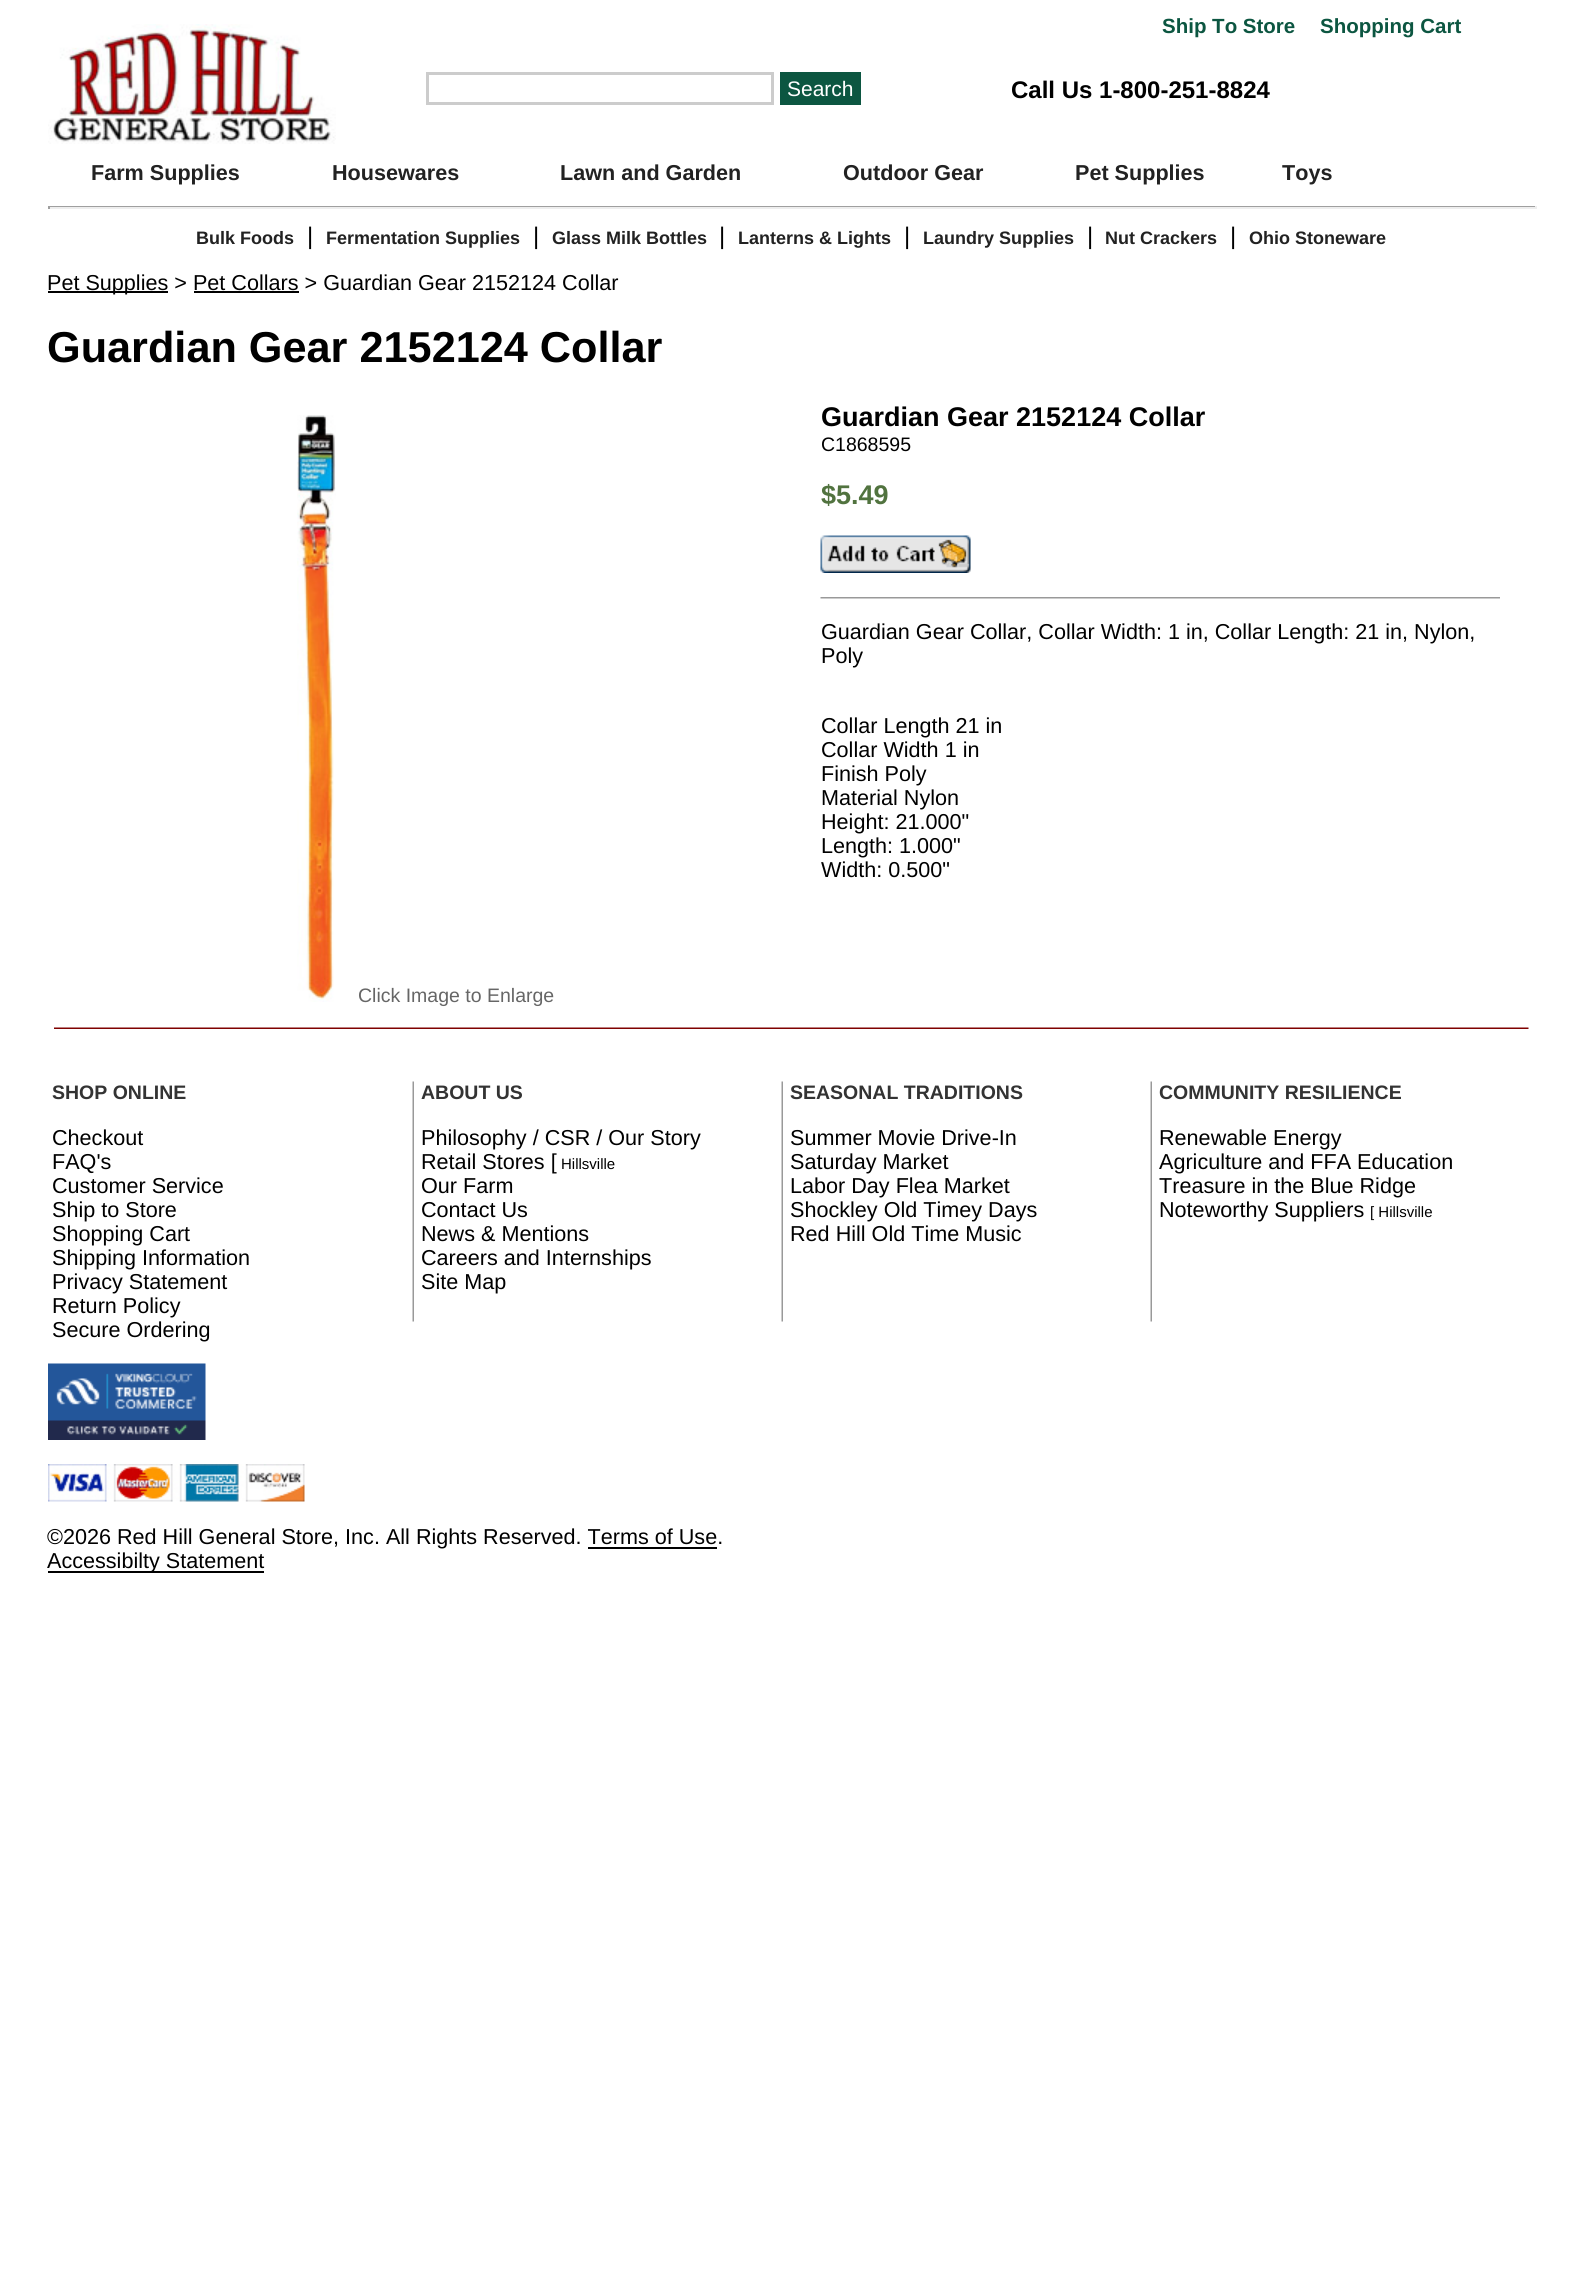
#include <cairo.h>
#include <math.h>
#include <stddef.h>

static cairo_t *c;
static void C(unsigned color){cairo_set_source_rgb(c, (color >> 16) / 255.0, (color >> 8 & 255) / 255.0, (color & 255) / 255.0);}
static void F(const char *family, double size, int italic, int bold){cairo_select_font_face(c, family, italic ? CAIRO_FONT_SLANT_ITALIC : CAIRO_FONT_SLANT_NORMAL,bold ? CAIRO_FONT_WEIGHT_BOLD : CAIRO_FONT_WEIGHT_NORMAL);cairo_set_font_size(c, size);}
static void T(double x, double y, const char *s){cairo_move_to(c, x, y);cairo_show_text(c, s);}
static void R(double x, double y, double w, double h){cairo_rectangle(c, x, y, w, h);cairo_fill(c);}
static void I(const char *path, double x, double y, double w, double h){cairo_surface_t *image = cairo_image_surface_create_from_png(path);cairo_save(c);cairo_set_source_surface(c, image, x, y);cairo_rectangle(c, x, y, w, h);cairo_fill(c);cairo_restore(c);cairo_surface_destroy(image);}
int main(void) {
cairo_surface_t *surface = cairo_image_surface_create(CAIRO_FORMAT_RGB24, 1582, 2270);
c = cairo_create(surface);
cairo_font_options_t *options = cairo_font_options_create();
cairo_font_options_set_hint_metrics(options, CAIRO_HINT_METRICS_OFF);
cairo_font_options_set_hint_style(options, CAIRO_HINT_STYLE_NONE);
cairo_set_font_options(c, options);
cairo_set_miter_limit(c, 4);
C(0xffffff);
cairo_paint(c);
F("Liberation Sans",20.5,0,1);
C(0x0c5641);
T(1162,33,"Ship To Store");
T(1320,33,"Shopping Cart");
I("1.png",48,24,288,120);
cairo_rectangle(c,427.5,73.5,345,30);
C(0xcccccc);
cairo_set_line_width(c,3);
cairo_stroke(c);
C(0x0c5641);
R(780,72,81,33);
F("Liberation Sans",21,0,0);
C(0xffffff);
T(787,96,"Search");
F("Liberation Sans",24,0,1);
C(0x000000);
T(1011,98,"Call Us 1-800-251-8824");
F("Liberation Sans",21.6,0,1);
C(0x222222);
T(91,180,"Farm Supplies");
T(332,180,"Housewares");
T(560,180,"Lawn and Garden");
T(843,180,"Outdoor Gear");
T(1075,180,"Pet Supplies");
T(1282,180,"Toys");
C(0x9f9f9f);
R(48,206,1488,1);
C(0xeeeeee);
R(1535,206,2,3);
R(48,207,1488,2);
C(0x9f9f9f);
R(48,206,2,3);
F("Liberation Sans",18,0,1);
C(0x222222);
T(196,244,"Bulk Foods");
F("Liberation Sans",24,0,0);
C(0x000000);
T(307,244,"|");
F("Liberation Sans",18,0,1);
C(0x222222);
T(326,244,"Fermentation Supplies");
F("Liberation Sans",24,0,0);
C(0x000000);
T(533,244,"|");
F("Liberation Sans",18,0,1);
C(0x222222);
T(552,244,"Glass Milk Bottles");
F("Liberation Sans",24,0,0);
C(0x000000);
T(719,244,"|");
F("Liberation Sans",18,0,1);
C(0x222222);
T(738,244,"Lanterns & Lights");
F("Liberation Sans",24,0,0);
C(0x000000);
T(904,244,"|");
F("Liberation Sans",18,0,1);
C(0x222222);
T(923,244,"Laundry Supplies");
F("Liberation Sans",24,0,0);
C(0x000000);
T(1087,244,"|");
F("Liberation Sans",18,0,1);
C(0x222222);
T(1105,244,"Nut Crackers");
F("Liberation Sans",24,0,0);
C(0x000000);
T(1230,244,"|");
F("Liberation Sans",18,0,1);
C(0x222222);
T(1249,244,"Ohio Stoneware");
C(0x000000);
R(48,291,120,2);
F("Liberation Sans",21.6,0,0);
T(47,290,"Pet Supplies > Pet Collars > Guardian Gear 2152124 Collar");
R(194,291,105,2);
F("Liberation Sans",43.25,0,1);
T(47,362,"Guardian Gear 2152124 Collar");
F("Liberation Sans",27,0,1);
T(821,426,"Guardian Gear 2152124 Collar");
F("Liberation Sans",19.5,0,0);
T(821,451,"C1868595");
F("Liberation Sans",27,0,1);
C(0x51733f);
T(821,504,"$5.49");
I("2.png",820,535,151,38);
I("3.png",820,597,680,2);
F("Liberation Sans",21.6,0,0);
C(0x000000);
T(821,639,"Guardian Gear Collar, Collar Width: 1 in, Collar Length: 21 in, Nylon,");
T(821,663,"Poly");
T(821,733,"Collar Length 21 in");
T(821,757,"Collar Width 1 in");
T(821,781,"Finish Poly");
T(821,805,"Material Nylon");
T(821,829,"Height: 21.000\"");
T(821,853,"Length: 1.000\"");
T(821,877,"Width: 0.500\"");
I("4.png",297,415,39,587);
F("Liberation Sans",19.5,0,0);
C(0x666666);
T(358,1002,"Click Image to Enlarge");
I("5.png",54,1027,1475,2);
F("Liberation Sans",19.5,0,1);
C(0x333333);
T(52,1099,"SHOP ONLINE");
F("Liberation Sans",21.6,0,0);
C(0x000000);
T(52,1145,"Checkout");
T(52,1169,"FAQ's");
T(52,1193,"Customer Service");
T(52,1217,"Ship to Store");
T(52,1241,"Shopping Cart");
T(52,1265,"Shipping Information");
T(52,1289,"Privacy Statement");
T(52,1313,"Return Policy");
T(52,1337,"Secure Ordering");
I("6.png",412,1081,2,241);
F("Liberation Sans",19.5,0,1);
C(0x333333);
T(421,1099,"ABOUT US");
F("Liberation Sans",21.6,0,0);
C(0x000000);
T(421,1145,"Philosophy / CSR / Our Story");
T(421,1169,"Retail Stores [");
F("Liberation Sans",15,0,0);
T(561,1169,"Hillsville");
F("Liberation Sans",21.6,0,0);
T(421,1193,"Our Farm");
T(421,1217,"Contact Us");
T(421,1241,"News & Mentions");
T(421,1265,"Careers and Internships");
T(421,1289,"Site Map");
I("6.png",781,1081,2,241);
F("Liberation Sans",19.5,0,1);
C(0x333333);
T(790,1099,"SEASONAL TRADITIONS");
F("Liberation Sans",21.6,0,0);
C(0x000000);
T(790,1145,"Summer Movie Drive-In");
T(790,1169,"Saturday Market");
T(790,1193,"Labor Day Flea Market");
T(790,1217,"Shockley Old Timey Days");
T(790,1241,"Red Hill Old Time Music");
I("6.png",1150,1081,2,241);
F("Liberation Sans",19.5,0,1);
C(0x333333);
T(1159,1099,"COMMUNITY RESILIENCE");
F("Liberation Sans",21.6,0,0);
C(0x000000);
T(1159,1145,"Renewable Energy");
T(1159,1169,"Agriculture and FFA Education");
T(1159,1193,"Treasure in the Blue Ridge");
T(1159,1217,"Noteworthy Suppliers");
F("Liberation Sans",15,0,0);
T(1370,1217,"[ Hillsville");
I("7.png",48,1363,158,77);
I("8.png",48,1464,257,38);
F("Liberation Sans",21.6,0,0);
T(47,1544,"©2026 Red Hill General Store, Inc. All Rights Reserved. Terms of Use.");
R(588,1547,129,2);
R(48,1571,216,2);
T(47,1568,"Accessibilty Statement");
cairo_surface_write_to_png(surface, "o.png");
cairo_font_options_destroy(options);
cairo_destroy(c);
cairo_surface_destroy(surface);
return 0;
}
